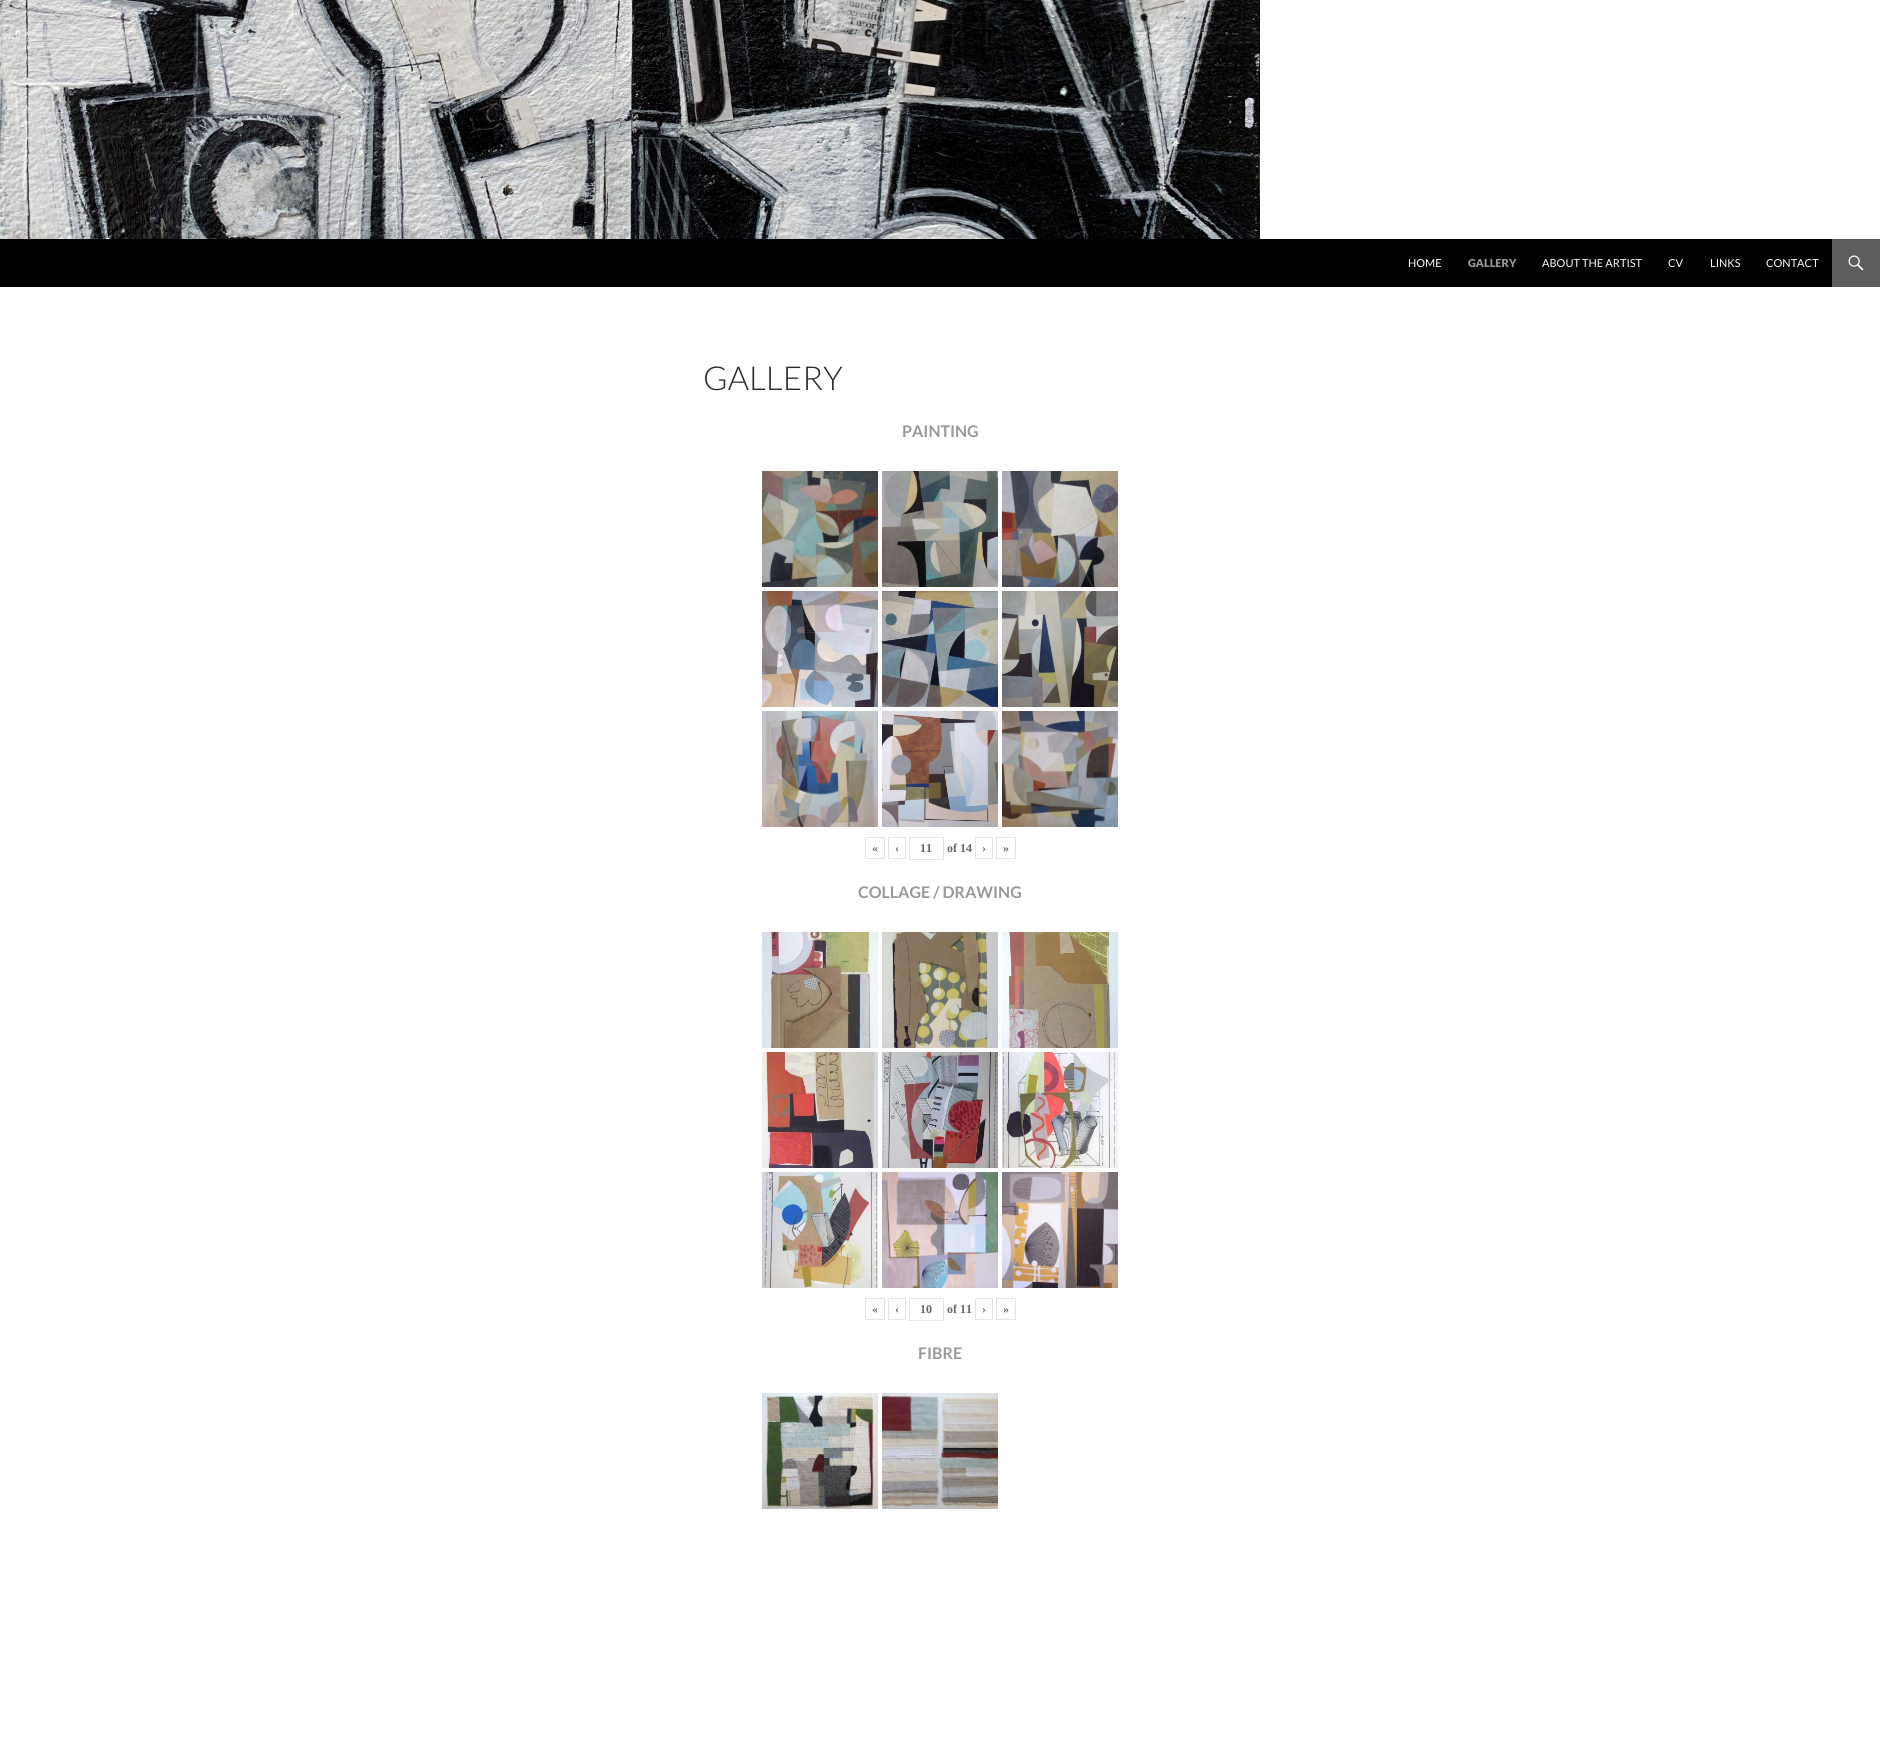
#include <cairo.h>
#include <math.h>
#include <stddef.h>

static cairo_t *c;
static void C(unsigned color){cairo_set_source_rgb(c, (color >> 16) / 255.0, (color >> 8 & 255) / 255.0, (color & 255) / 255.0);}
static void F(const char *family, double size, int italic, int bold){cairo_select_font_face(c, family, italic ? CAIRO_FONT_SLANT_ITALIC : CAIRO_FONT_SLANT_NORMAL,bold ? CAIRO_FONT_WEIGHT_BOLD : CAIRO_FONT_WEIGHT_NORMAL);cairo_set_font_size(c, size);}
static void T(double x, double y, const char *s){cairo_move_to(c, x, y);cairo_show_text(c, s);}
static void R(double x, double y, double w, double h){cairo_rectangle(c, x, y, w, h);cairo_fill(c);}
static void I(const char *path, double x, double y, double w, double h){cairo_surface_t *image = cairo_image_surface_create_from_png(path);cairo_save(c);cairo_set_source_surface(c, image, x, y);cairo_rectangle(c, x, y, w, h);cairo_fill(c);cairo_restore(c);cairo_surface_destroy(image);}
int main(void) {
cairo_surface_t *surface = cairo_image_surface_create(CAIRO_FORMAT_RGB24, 1880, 1752);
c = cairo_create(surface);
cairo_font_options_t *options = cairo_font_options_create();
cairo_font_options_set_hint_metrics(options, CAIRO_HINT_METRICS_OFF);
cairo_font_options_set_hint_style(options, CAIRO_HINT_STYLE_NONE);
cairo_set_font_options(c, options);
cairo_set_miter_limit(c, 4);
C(0xffffff);
cairo_paint(c);
I("1.png",0,0,1260,239);
C(0x000000);
R(0,239,1832,48);
F("Lato",11,0,0);
C(0xffffff);
T(1408,267,"HOME");
F("Lato Black",11,0,0);
C(0x999999);
T(1468,267,"GALLERY");
F("Lato",11,0,0);
C(0xffffff);
T(1542,267,"ABOUT THE ARTIST");
T(1668,267,"CV");
T(1710,267,"LINKS");
T(1766,267,"CONTACT");
C(0x5d5d5d);
R(1832,239,48,48);
I("2.png",1848,255,16,16);
F("Lato Light",33,0,0);
C(0x2b2b2b);
T(703,390,"GALLERY");
F("Lato",16,0,1);
C(0x999999);
T(902,437,"PAINTING");
I("3.png",762,471,116,116);
I("4.png",882,471,116,116);
I("5.png",1002,471,116,116);
I("6.png",762,591,116,116);
I("7.png",882,591,116,116);
I("8.png",1002,591,116,116);
I("9.png",762,711,116,116);
I("10.png",882,711,116,116);
I("11.png",1002,711,116,116);
cairo_rectangle(c,865.5,837.5,19,21);
C(0xe3e3e3);
cairo_set_line_width(c,1);
cairo_stroke(c);
F("Liberation Serif",12,0,1);
C(0x666666);
T(872,852,"«");
cairo_rectangle(c,888.5,837.5,17,21);
C(0xe3e3e3);
cairo_stroke(c);
C(0x666666);
T(895,852,"‹");
cairo_rectangle(c,909.5,837.5,34,22);
C(0xe3e3e3);
cairo_stroke(c);
C(0x666666);
T(920,852,"11");
T(947,852,"of 14");
cairo_rectangle(c,975.5,837.5,17,21);
C(0xe3e3e3);
cairo_stroke(c);
C(0x666666);
T(982,852,"›");
cairo_rectangle(c,996.5,837.5,19,21);
C(0xe3e3e3);
cairo_stroke(c);
C(0x666666);
T(1003,852,"»");
F("Lato",16,0,1);
C(0x999999);
T(858,898,"COLLAGE / DRAWING");
I("12.png",762,932,116,116);
I("13.png",882,932,116,116);
I("14.png",1002,932,116,116);
I("15.png",762,1052,116,116);
I("16.png",882,1052,116,116);
I("17.png",1002,1052,116,116);
I("18.png",762,1172,116,116);
I("19.png",882,1172,116,116);
I("20.png",1002,1172,116,116);
cairo_rectangle(c,865.5,1298.5,19,21);
C(0xe3e3e3);
cairo_stroke(c);
F("Liberation Serif",12,0,1);
C(0x666666);
T(872,1313,"«");
cairo_rectangle(c,888.5,1298.5,17,21);
C(0xe3e3e3);
cairo_stroke(c);
C(0x666666);
T(895,1313,"‹");
cairo_rectangle(c,909.5,1298.5,34,22);
C(0xe3e3e3);
cairo_stroke(c);
C(0x666666);
T(920,1313,"10");
T(947,1313,"of 11");
cairo_rectangle(c,975.5,1298.5,17,21);
C(0xe3e3e3);
cairo_stroke(c);
C(0x666666);
T(982,1313,"›");
cairo_rectangle(c,996.5,1298.5,19,21);
C(0xe3e3e3);
cairo_stroke(c);
C(0x666666);
T(1003,1313,"»");
F("Lato",16,0,1);
C(0x999999);
T(918,1359,"FIBRE");
I("21.png",762,1393,116,116);
I("22.png",882,1393,116,116);
cairo_surface_write_to_png(surface, "o.png");
cairo_font_options_destroy(options);
cairo_destroy(c);
cairo_surface_destroy(surface);
return 0;
}
